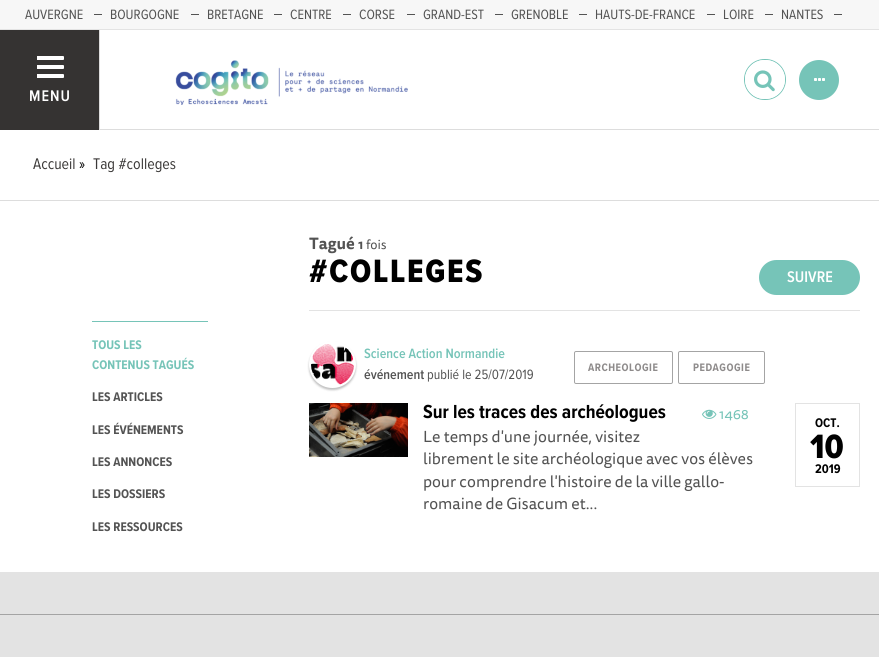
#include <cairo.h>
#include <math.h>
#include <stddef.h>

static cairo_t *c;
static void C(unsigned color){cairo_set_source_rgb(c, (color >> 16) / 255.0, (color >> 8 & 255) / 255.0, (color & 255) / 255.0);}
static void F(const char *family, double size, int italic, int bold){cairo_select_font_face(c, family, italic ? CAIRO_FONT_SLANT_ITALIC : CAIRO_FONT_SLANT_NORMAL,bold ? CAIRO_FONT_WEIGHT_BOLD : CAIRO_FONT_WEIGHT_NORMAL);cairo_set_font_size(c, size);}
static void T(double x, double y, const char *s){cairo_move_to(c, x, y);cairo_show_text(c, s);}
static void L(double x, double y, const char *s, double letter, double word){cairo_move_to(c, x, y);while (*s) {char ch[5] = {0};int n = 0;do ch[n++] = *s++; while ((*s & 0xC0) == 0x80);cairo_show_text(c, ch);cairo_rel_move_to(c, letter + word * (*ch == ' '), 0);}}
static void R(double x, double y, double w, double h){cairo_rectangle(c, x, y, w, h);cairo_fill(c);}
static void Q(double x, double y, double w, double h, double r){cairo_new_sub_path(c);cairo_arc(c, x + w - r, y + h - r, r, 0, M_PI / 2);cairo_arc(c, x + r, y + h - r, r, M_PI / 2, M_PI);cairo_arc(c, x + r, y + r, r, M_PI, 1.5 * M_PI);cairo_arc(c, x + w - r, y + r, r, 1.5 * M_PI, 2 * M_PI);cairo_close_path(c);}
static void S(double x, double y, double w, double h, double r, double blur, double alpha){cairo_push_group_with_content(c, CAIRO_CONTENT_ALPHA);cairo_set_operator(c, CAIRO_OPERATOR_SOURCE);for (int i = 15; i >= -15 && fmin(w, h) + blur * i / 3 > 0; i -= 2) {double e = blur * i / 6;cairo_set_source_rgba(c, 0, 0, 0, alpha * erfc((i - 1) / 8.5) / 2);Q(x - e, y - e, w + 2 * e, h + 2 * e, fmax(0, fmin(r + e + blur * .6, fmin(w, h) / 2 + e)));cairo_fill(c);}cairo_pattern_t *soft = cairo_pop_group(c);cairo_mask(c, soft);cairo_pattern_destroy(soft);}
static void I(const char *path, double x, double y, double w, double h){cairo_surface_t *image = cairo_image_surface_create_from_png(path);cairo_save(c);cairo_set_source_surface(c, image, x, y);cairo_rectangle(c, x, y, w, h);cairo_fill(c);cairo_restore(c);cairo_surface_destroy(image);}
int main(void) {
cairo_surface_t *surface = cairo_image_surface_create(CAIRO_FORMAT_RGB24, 879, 657);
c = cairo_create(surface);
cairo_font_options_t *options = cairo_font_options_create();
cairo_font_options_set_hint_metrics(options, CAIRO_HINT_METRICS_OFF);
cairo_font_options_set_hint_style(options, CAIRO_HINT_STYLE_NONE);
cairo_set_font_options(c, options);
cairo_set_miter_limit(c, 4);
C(0xffffff);
cairo_paint(c);
C(0xf7f7f7);
R(0,0,879,29);
C(0xe3e3e3);
R(0,29,879,1);
F("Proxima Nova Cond",14,0,0);
C(0x535353);
T(25,19,"AUVERGNE");
R(94,14,8,1);
T(110,19,"BOURGOGNE");
R(191,14,8,1);
T(207,19,"BRETAGNE");
R(274,14,8,1);
T(290,19,"CENTRE");
R(343,14,8,1);
T(359,19,"CORSE");
R(407,14,8,1);
T(423,19,"GRAND-EST");
R(495,14,8,1);
T(511,19,"GRENOBLE");
R(579,14,8,1);
T(595,19,"HAUTS-DE-FRANCE");
R(707,14,8,1);
T(723,19,"LOIRE");
R(765,14,8,1);
T(781,19,"NANTES");
R(834,14,8,1);
C(0xdddddd);
R(100,129,779,1);
C(0x353332);
R(0,30,99,100);
C(0xdddddd);
R(99,30,1,100);
C(0xffffff);
Q(36,56,28,4,1);
cairo_fill(c);
C(0x353332);
R(36,56,1,4);
C(0xffffff);
Q(36,65,28,4,1);
cairo_fill(c);
C(0x353332);
R(36,65,1,4);
C(0xffffff);
Q(36,74,28,4,1);
cairo_fill(c);
C(0x353332);
R(36,74,1,4);
F("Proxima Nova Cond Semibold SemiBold",16,0,0);
C(0xffffff);
L(29,101,"MENU",1,0);
I("1.png",175,60,233,45);
Q(744.5,59.5,41,40,20);
C(0x76c4b8);
cairo_set_line_width(c,1);
cairo_stroke(c);
C(0xffffff);
Q(745,60,40,39,19.5);
cairo_fill(c);
I("2.png",754,70,21,22);
C(0x76c4b8);
cairo_arc(c,819,80,20,0,2 * M_PI);
cairo_fill(c);
I("3.png",814,78,11,3);
C(0xdddddd);
R(0,200,879,1);
F("Proxima Nova Cond",16,0,0);
C(0x3b3938);
T(33,169,"Accueil");
C(0x000000);
T(79,169,"»");
C(0x3b3938);
T(93,169,"Tag #colleges");
C(0x76c4b8);
R(92,321,116,1);
F("Proxima Nova Cond",13,0,1);
T(92,349,"TOUS LES");
T(92,369,"CONTENUS TAGUÉS");
C(0x535353);
T(92,401,"LES ARTICLES");
T(92,434,"LES ÉVÉNEMENTS");
T(92,466,"LES ANNONCES");
T(92,498,"LES DOSSIERS");
T(92,531,"LES RESSOURCES");
F("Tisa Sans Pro",16,0,1);
T(309,249,"Tagué");
F("Tisa Sans Pro",13,0,1);
T(358,249,"1");
F("Tisa Sans Pro",13,0,0);
T(366,249,"fois");
F("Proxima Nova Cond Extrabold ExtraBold",33.5,0,0);
C(0x000000);
L(309,282,"#COLLEGES",1.75,0);
C(0x76c4b8);
Q(759,260,101,35,17.5);
cairo_fill(c);
F("Proxima Nova Cond Semibold SemiBold",16,0,0);
C(0xffffff);
T(787,282,"SUIVRE");
C(0xe3e3e3);
R(309,310,551,1);
C(0x000000);
S(309,343,47,47,23.5,1,.25);
C(0xffffff);
cairo_arc(c,332.5,364.5,22.5,0,2 * M_PI);
cairo_fill_preserve(c);
cairo_set_line_width(c,2);
cairo_stroke(c);
I("4.png",311,344,43,41);
F("Proxima Nova Cond Semibold SemiBold",14,0,0);
C(0x76c4b8);
T(364,358,"Science Action Normandie");
C(0x535353);
T(364,379,"événement");
F("Proxima Nova Cond",14,0,0);
T(427,379,"publié le 25/07/2019");
Q(574.5,351.5,98,32,1.5);
C(0xa4a4a4);
cairo_set_line_width(c,1);
cairo_stroke(c);
F("Proxima Nova Cond",11.25,0,1);
C(0x8e8b8b);
L(588,371,"ARCHEOLOGIE",.5,0);
Q(678.5,351.5,86,32,1.5);
C(0xa4a4a4);
cairo_stroke(c);
C(0x8e8b8b);
L(693,371,"PEDAGOGIE",.5,0);
I("5.png",309,403,99,54);
F("Proxima Nova Cond",19.6,0,1);
C(0x000000);
T(423,418,"Sur les traces des archéologues");
F("Tisa Sans Pro",16,0,0);
C(0x535353);
T(423,442,"Le temps d'une journée, visitez");
T(423,464,"librement le site archéologique avec vos élèves");
T(423,487,"pour comprendre l'histoire de la ville gallo-");
T(423,509,"romaine de Gisacum et...");
I("6.png",702,409,15,10);
F("Tisa Sans Pro",14,0,0);
C(0x76c4b8);
T(719,419,"1468");
cairo_rectangle(c,795.5,403.5,64,83);
C(0xe3e3e3);
cairo_stroke(c);
F("Proxima Nova Cond",13,0,1);
C(0x000000);
T(815,427,"OCT.");
F("Proxima Nova Cond Extrabold ExtraBold",35,0,0);
T(810,458,"10");
F("Proxima Nova Cond",13,0,1);
T(815,473,"2019");
C(0xe3e3e3);
R(0,572,879,42);
R(0,615,879,42);
C(0xa4a4a4);
R(0,614,879,1);
cairo_surface_write_to_png(surface, "o.png");
cairo_font_options_destroy(options);
cairo_destroy(c);
cairo_surface_destroy(surface);
return 0;
}
